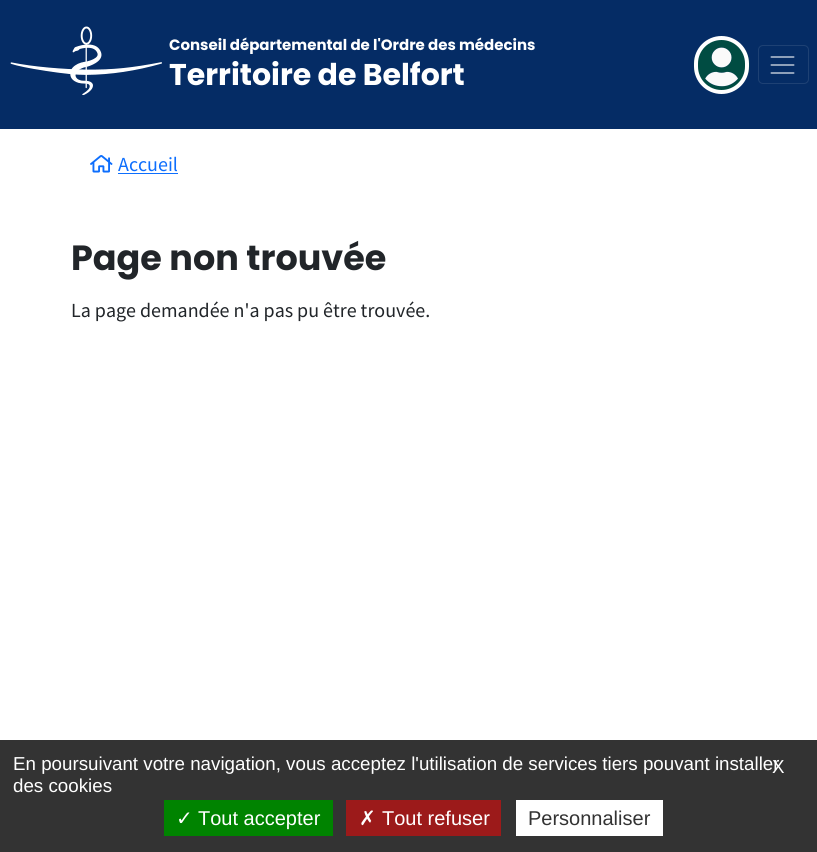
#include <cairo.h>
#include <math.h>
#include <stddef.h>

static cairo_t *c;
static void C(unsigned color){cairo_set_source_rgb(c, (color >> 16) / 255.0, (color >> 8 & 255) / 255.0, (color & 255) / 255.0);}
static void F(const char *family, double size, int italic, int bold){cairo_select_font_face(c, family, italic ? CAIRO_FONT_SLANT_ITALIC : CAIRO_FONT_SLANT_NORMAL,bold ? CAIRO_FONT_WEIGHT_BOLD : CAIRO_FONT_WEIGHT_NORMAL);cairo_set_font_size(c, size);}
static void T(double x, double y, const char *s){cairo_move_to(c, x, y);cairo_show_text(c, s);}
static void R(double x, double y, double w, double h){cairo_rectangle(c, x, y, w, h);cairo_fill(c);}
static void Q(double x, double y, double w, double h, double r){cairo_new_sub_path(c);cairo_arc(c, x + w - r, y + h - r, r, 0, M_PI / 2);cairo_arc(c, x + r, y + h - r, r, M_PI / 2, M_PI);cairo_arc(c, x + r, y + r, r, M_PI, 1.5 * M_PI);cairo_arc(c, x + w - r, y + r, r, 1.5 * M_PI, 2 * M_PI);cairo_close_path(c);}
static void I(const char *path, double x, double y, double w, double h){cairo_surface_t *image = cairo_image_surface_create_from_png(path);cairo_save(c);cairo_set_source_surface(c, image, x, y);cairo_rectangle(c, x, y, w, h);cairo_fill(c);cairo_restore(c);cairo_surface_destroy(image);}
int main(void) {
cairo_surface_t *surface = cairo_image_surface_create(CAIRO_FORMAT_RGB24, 817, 852);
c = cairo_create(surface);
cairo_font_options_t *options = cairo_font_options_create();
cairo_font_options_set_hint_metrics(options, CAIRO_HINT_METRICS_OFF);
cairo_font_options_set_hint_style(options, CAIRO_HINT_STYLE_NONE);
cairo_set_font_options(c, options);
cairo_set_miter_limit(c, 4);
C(0xffffff);
cairo_paint(c);
C(0x052c65);
R(0,0,817,129);
I("1.png",10,26,152,69);
F("Poppins",15,0,1);
C(0xffffff);
T(169,50,"Conseil départemental de l'Ordre des médecins");
F("Poppins",30,0,1);
T(169,85,"Territoire de Belfort");
I("2.png",693,36,57,54);
Q(696,38,51,54,25.5);
cairo_set_line_width(c,4);
cairo_stroke(c);
I("3.png",705,47,33,40);
Q(758.5,45.5,50,38,4.5);
C(0x1e4174);
cairo_set_line_width(c,1);
cairo_stroke(c);
I("4.png",770,56,25,18);
I("5.png",90,155,23,18);
F("Source Sans Pro",20,0,0);
C(0x0d6efd);
T(118,171,"Accueil");
R(118,173,60,1);
F("Poppins",35,0,1);
C(0x212529);
T(71,270,"Page non trouvée");
F("Source Sans Pro",20,0,0);
T(71,317,"La page demandée n'a pas pu être trouvée.");
C(0x333333);
R(0,740,817,112);
F("Liberation Sans",18.75,0,0);
C(0xffffff);
T(13,770,"En poursuivant votre navigation, vous acceptez l'utilisation de services tiers pouvant installer");
T(13,792,"des cookies");
T(772,773,"X");
C(0x008300);
R(164,800,169,36);
F("DejaVu Sans",20,0,0);
C(0xffffff);
T(176,825,"✓");
F("Liberation Sans",20,0,0);
T(198,825,"Tout accepter");
C(0x9c1a1a);
R(346,800,155,36);
F("DejaVu Sans",20,0,0);
C(0xffffff);
T(359,825,"✗");
F("Liberation Sans",20,0,0);
T(382,825,"Tout refuser");
R(516,800,147,36);
C(0x333333);
T(528,825,"Personnaliser");
cairo_surface_write_to_png(surface, "o.png");
cairo_font_options_destroy(options);
cairo_destroy(c);
cairo_surface_destroy(surface);
return 0;
}
